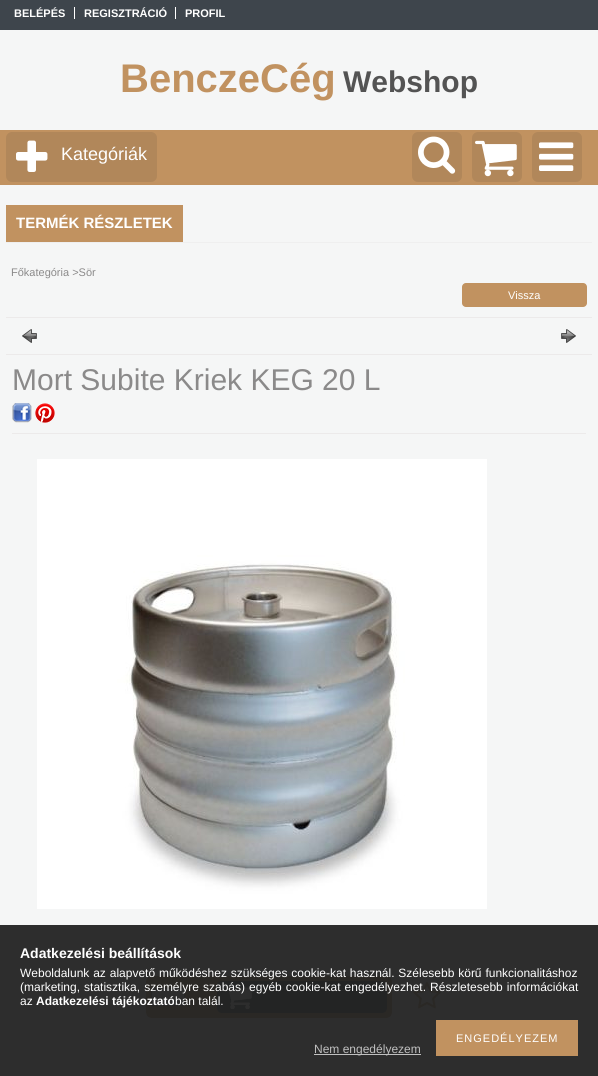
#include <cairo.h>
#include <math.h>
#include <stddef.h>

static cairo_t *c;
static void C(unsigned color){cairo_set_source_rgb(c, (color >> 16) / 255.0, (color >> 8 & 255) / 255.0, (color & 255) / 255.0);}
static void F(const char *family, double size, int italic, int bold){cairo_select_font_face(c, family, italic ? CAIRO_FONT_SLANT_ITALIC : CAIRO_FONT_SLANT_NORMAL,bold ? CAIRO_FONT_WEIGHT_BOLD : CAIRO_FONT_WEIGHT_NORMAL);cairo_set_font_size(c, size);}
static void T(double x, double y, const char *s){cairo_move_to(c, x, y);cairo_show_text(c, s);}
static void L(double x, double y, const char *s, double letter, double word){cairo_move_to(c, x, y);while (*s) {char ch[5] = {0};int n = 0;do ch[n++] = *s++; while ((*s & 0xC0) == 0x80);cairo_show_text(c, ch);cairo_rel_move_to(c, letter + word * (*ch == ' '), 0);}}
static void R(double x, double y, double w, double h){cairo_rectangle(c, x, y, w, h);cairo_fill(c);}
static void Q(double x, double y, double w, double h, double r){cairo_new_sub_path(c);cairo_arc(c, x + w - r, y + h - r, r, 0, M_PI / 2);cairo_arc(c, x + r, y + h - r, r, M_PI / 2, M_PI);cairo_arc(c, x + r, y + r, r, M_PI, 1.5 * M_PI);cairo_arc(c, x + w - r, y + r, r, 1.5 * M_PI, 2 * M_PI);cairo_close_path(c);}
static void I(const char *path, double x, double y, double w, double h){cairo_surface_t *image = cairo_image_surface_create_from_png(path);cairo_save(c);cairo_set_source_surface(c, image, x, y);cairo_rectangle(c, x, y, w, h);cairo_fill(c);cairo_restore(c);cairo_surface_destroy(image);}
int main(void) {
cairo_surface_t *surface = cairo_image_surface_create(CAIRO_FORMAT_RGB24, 598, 1076);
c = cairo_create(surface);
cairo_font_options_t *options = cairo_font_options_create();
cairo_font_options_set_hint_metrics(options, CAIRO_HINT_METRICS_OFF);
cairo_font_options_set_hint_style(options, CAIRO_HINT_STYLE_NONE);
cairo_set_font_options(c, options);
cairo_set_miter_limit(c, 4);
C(0xf5f6f6);
cairo_paint(c);
C(0x2d2d2d);
R(0,925,598,151);
C(0x3e454c);
R(0,0,598,30);
F("Liberation Sans",11,0,1);
C(0xffffff);
T(14,17,"BELÉPÉS");
R(74,7,1,12);
T(84,17,"REGISZTRÁCIÓ");
R(175,7,1,12);
T(185,17,"PROFIL");
F("Liberation Sans",40,0,1);
C(0xc19260);
T(120,92,"BenczeCég");
F("Liberation Sans",30,0,1);
C(0x535353);
T(343,92,"Webshop");
C(0xc19260);
R(0,130,598,55);
C(0xb1875a);
Q(6,132,151,50,6);
cairo_fill(c);
I("1.png",16,140,32,32);
F("Liberation Sans",18,0,0);
C(0xffffff);
T(61,160,"Kategóriák");
C(0xb1875a);
Q(412,132,50,50,6);
cairo_fill(c);
I("2.png",418,136,38,38);
Q(472,132,50,50,6);
cairo_fill(c);
I("3.png",475,140,42,37);
Q(532,132,50,50,6);
cairo_fill(c);
I("4.png",539,142,35,29);
C(0xefefef);
R(6,242,586,1);
C(0xc19260);
R(6,205,177,37);
F("Liberation Sans",15,0,1);
C(0xffffff);
T(16,228,"TERMÉK RÉSZLETEK");
F("Liberation Sans",11,0,0);
C(0x8b8a8a);
T(11,276,"Főkategória >Sör");
C(0xc19260);
Q(462,283,125,24,4);
cairo_fill(c);
C(0xffffff);
T(508,299,"Vissza");
C(0xeceaea);
R(6,317,586,1);
I("5.png",22,329,15,14);
I("6.png",561,329,15,14);
R(6,354,586,1);
R(12,433,574,1);
F("Liberation Sans",30,0,0);
C(0x8b8a8a);
T(12,390,"Mort Subite Kriek KEG 20 L");
I("7.png",12,403,20,20);
I("8.png",35,403,20,20);
I("9.png",37,459,450,450);
C(0x2a2825);
Q(146,976,246,42,6);
cairo_fill(c);
C(0x2d2d2d);
Q(151.5,988.5,33,17,1.5);
cairo_fill_preserve(c);
C(0x262626);
cairo_set_line_width(c,1);
cairo_stroke(c);
C(0x232424);
Q(217,981,170,32,5);
cairo_fill(c);
I("11.png",224,985,28,25);
I("10.png",224,985,28,25);
I("12.png",413,981,28,28);
F("Liberation Sans",14,0,1);
C(0xffffff);
T(20,958,"Adatkezelési beállítások");
F("Liberation Sans",12,0,0);
L(20,977,"Weboldalunk az alapvető működéshez szükséges cookie-kat használ. Szélesebb körű funkcionalitáshoz",0,.5);
L(20,991,"(marketing, statisztika, személyre szabás) egyéb cookie-kat engedélyezhet. Részletesebb információkat",0,.75);
T(20,1005,"az");
F("Liberation Sans",12,0,1);
T(36,1005,"Adatkezelési tájékoztató");
F("Liberation Sans",12,0,0);
T(175,1005,"ban talál.");
C(0xc19260);
R(436,1020,142,36);
F("Liberation Sans",11,0,0);
C(0xffffff);
L(456,1042,"ENGEDÉLYEZEM",1,0);
C(0xc0c0c0);
R(314,1054,107,1);
F("Liberation Sans",12,0,0);
T(314,1053,"Nem engedélyezem");
cairo_surface_write_to_png(surface, "o.png");
cairo_font_options_destroy(options);
cairo_destroy(c);
cairo_surface_destroy(surface);
return 0;
}
